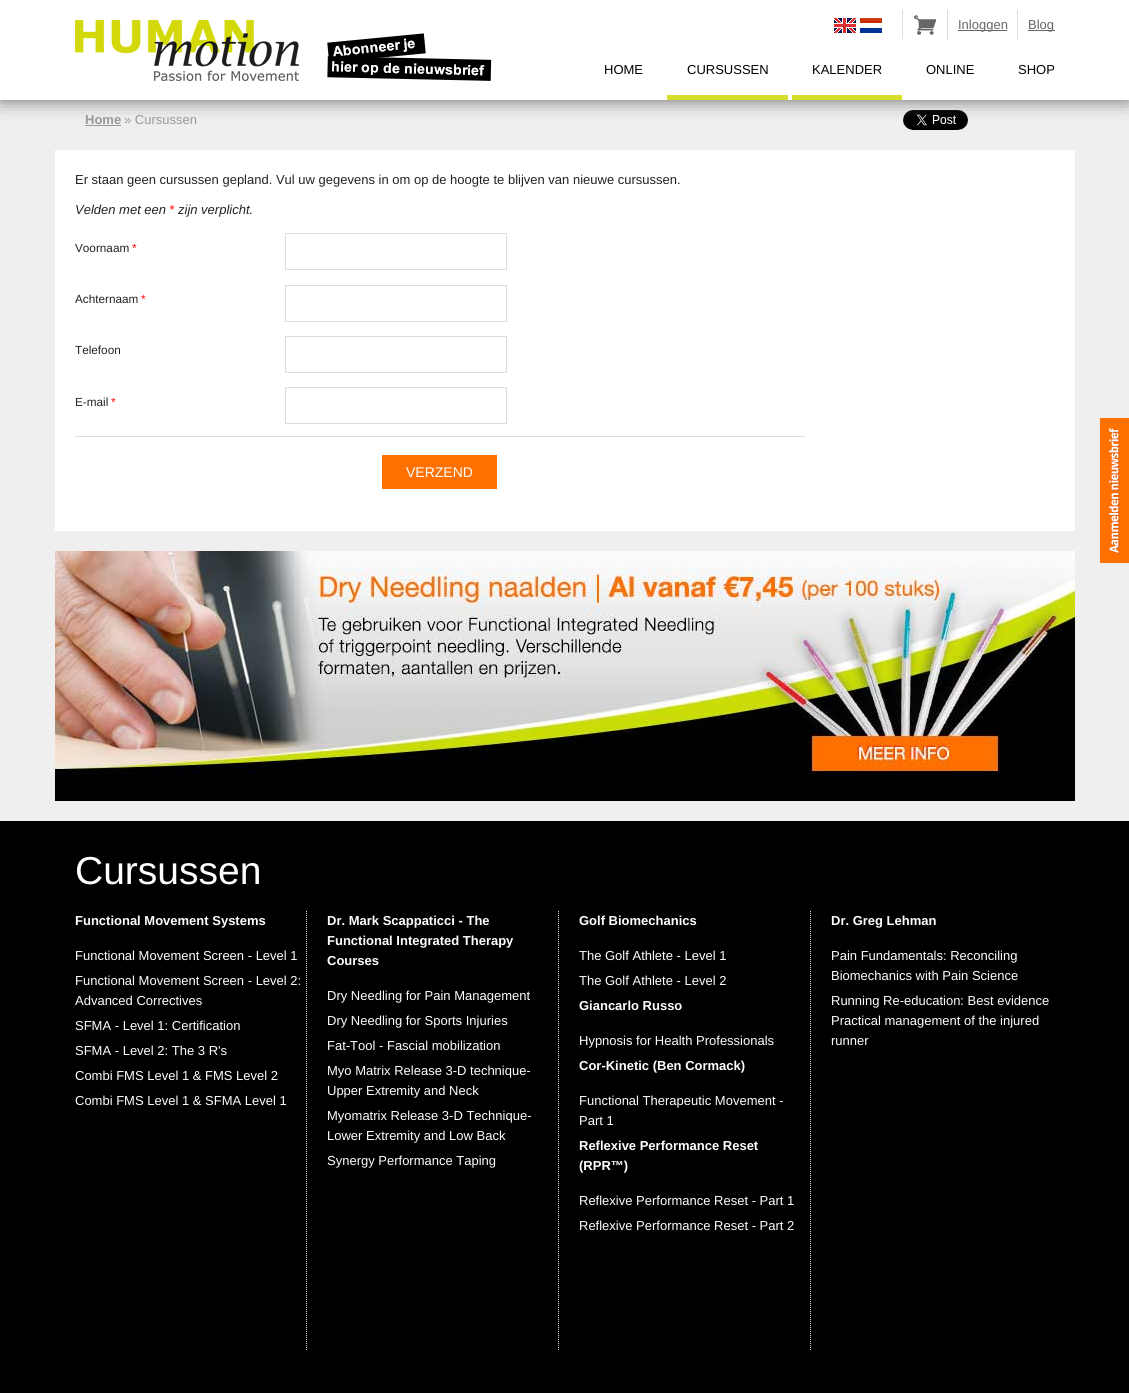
#include <cairo.h>
#include <math.h>
#include <stddef.h>

static cairo_t *c;
static void C(unsigned color){cairo_set_source_rgb(c, (color >> 16) / 255.0, (color >> 8 & 255) / 255.0, (color & 255) / 255.0);}
static void F(const char *family, double size, int italic, int bold){cairo_select_font_face(c, family, italic ? CAIRO_FONT_SLANT_ITALIC : CAIRO_FONT_SLANT_NORMAL,bold ? CAIRO_FONT_WEIGHT_BOLD : CAIRO_FONT_WEIGHT_NORMAL);cairo_set_font_size(c, size);}
static void T(double x, double y, const char *s){cairo_move_to(c, x, y);cairo_show_text(c, s);}
static void R(double x, double y, double w, double h){cairo_rectangle(c, x, y, w, h);cairo_fill(c);}
static void Q(double x, double y, double w, double h, double r){cairo_new_sub_path(c);cairo_arc(c, x + w - r, y + h - r, r, 0, M_PI / 2);cairo_arc(c, x + r, y + h - r, r, M_PI / 2, M_PI);cairo_arc(c, x + r, y + r, r, M_PI, 1.5 * M_PI);cairo_arc(c, x + w - r, y + r, r, 1.5 * M_PI, 2 * M_PI);cairo_close_path(c);}
static void S(double x, double y, double w, double h, double r, double blur, double alpha){cairo_push_group_with_content(c, CAIRO_CONTENT_ALPHA);cairo_set_operator(c, CAIRO_OPERATOR_SOURCE);for (int i = 15; i >= -15 && fmin(w, h) + blur * i / 3 > 0; i -= 2) {double e = blur * i / 6;cairo_set_source_rgba(c, 0, 0, 0, alpha * erfc((i - 1) / 8.5) / 2);Q(x - e, y - e, w + 2 * e, h + 2 * e, fmax(0, fmin(r + e + blur * .6, fmin(w, h) / 2 + e)));cairo_fill(c);}cairo_pattern_t *soft = cairo_pop_group(c);cairo_mask(c, soft);cairo_pattern_destroy(soft);}
static void I(const char *path, double x, double y, double w, double h){cairo_surface_t *image = cairo_image_surface_create_from_png(path);cairo_save(c);cairo_set_source_surface(c, image, x, y);cairo_rectangle(c, x, y, w, h);cairo_fill(c);cairo_restore(c);cairo_surface_destroy(image);}
int main(void) {
cairo_surface_t *surface = cairo_image_surface_create(CAIRO_FORMAT_RGB24, 1129, 1393);
c = cairo_create(surface);
cairo_font_options_t *options = cairo_font_options_create();
cairo_font_options_set_hint_metrics(options, CAIRO_HINT_METRICS_OFF);
cairo_font_options_set_hint_style(options, CAIRO_HINT_STYLE_NONE);
cairo_set_font_options(c, options);
cairo_set_miter_limit(c, 4);
C(0xefefef);
cairo_paint(c);
C(0x999999);
R(85,125,36,1);
I("6.png",903,110,65,20);
C(0x666666);
S(0,0,1129,100,0,9.5,1);
C(0xffffff);
R(0,0,1129,100);
I("1.png",75,20,224,61);
I("2.png",327,33,165,48);
C(0xdddddd);
R(902,10,1,29);
I("3.png",834,18,22,15);
I("4.png",860,18,22,15);
R(947,10,1,30);
I("5.png",914,15,22,20);
R(1017,10,1,30);
C(0x666666);
R(958,30,49,1);
F("Liberation Sans",13,0,0);
T(958,29,"Inloggen");
R(1028,30,27,1);
T(1028,29,"Blog");
C(0x000000);
T(604,74,"HOME");
C(0xd7df2c);
R(667,95,121,5);
C(0x000000);
T(687,74,"CURSUSSEN");
C(0xd7df2c);
R(792,95,110,5);
C(0x000000);
T(812,74,"KALENDER");
T(926,74,"ONLINE");
T(1018,74,"SHOP");
F("Liberation Sans",13,0,1);
C(0x999999);
T(85,124,"Home");
F("Liberation Sans",13,0,0);
T(124,124,"» Cursussen");
C(0xffffff);
R(55,150,1020,381);
C(0x222222);
T(75,184,"Er staan geen cursussen gepland. Vul uw gegevens in om op de hoogte te blijven van nieuwe cursussen.");
F("Liberation Sans",13,1,0);
T(75,214,"Velden met een");
C(0xff0000);
T(169,214,"*");
C(0x222222);
T(178,214,"zijn verplicht.");
F("Liberation Sans",11.75,0,0);
T(75,252,"Voornaam");
C(0xff0000);
T(132,252,"*");
cairo_rectangle(c,285.5,233.5,221,36);
C(0xdddddd);
cairo_set_line_width(c,1);
cairo_stroke(c);
C(0x222222);
T(75,303,"Achternaam");
C(0xff0000);
T(141,303,"*");
cairo_rectangle(c,285.5,285.5,221,36);
C(0xdddddd);
cairo_stroke(c);
C(0x222222);
T(75,354,"Telefoon");
cairo_rectangle(c,285.5,336.5,221,36);
C(0xdddddd);
cairo_stroke(c);
C(0x222222);
T(75,406,"E-mail");
C(0xff0000);
T(111,406,"*");
cairo_rectangle(c,285.5,387.5,221,36);
C(0xdddddd);
cairo_stroke(c);
R(75,436,730,1);
C(0xfe7000);
R(382,455,115,34);
F("Liberation Sans",14,0,0);
C(0xffffff);
T(406,477,"VERZEND");
I("7.png",55,551,1020,250);
C(0x000000);
R(0,821,1129,572);
F("Liberation Sans",39,0,0);
C(0xffffff);
T(75,884,"Cursussen");
cairo_new_path(c);
cairo_move_to(c,306.5,911);
cairo_line_to(c,306.5,1351);
C(0xdddddd);
cairo_set_dash(c,(double[]){1,1},2,0);
cairo_stroke(c);
F("Liberation Sans",13,0,1);
C(0xffffff);
T(75,925,"Functional Movement Systems");
F("Liberation Sans",13,0,0);
T(75,960,"Functional Movement Screen - Level 1");
T(75,985,"Functional Movement Screen - Level 2:");
T(75,1005,"Advanced Correctives");
T(75,1030,"SFMA - Level 1: Certification");
T(75,1055,"SFMA - Level 2: The 3 R's");
T(75,1080,"Combi FMS Level 1 & FMS Level 2");
T(75,1105,"Combi FMS Level 1 & SFMA Level 1");
cairo_new_path(c);
cairo_move_to(c,558.5,911);
cairo_line_to(c,558.5,1351);
C(0xdddddd);
cairo_stroke(c);
F("Liberation Sans",13,0,1);
C(0xffffff);
T(327,925,"Dr. Mark Scappaticci - The");
T(327,945,"Functional Integrated Therapy");
T(327,965,"Courses");
F("Liberation Sans",13,0,0);
T(327,1000,"Dry Needling for Pain Management");
T(327,1025,"Dry Needling for Sports Injuries");
T(327,1050,"Fat-Tool - Fascial mobilization");
T(327,1075,"Myo Matrix Release 3-D technique-");
T(327,1095,"Upper Extremity and Neck");
T(327,1120,"Myomatrix Release 3-D Technique-");
T(327,1140,"Lower Extremity and Low Back");
T(327,1165,"Synergy Performance Taping");
cairo_new_path(c);
cairo_move_to(c,810.5,911);
cairo_line_to(c,810.5,1351);
C(0xdddddd);
cairo_stroke(c);
F("Liberation Sans",13,0,1);
C(0xffffff);
T(579,925,"Golf Biomechanics");
F("Liberation Sans",13,0,0);
T(579,960,"The Golf Athlete - Level 1");
T(579,985,"The Golf Athlete - Level 2");
F("Liberation Sans",13,0,1);
T(579,1010,"Giancarlo Russo");
F("Liberation Sans",13,0,0);
T(579,1045,"Hypnosis for Health Professionals");
F("Liberation Sans",13,0,1);
T(579,1070,"Cor-Kinetic (Ben Cormack)");
F("Liberation Sans",13,0,0);
T(579,1105,"Functional Therapeutic Movement -");
T(579,1125,"Part 1");
F("Liberation Sans",13,0,1);
T(579,1150,"Reflexive Performance Reset");
T(579,1170,"(RPR™)");
F("Liberation Sans",13,0,0);
T(579,1205,"Reflexive Performance Reset - Part 1");
T(579,1230,"Reflexive Performance Reset - Part 2");
F("Liberation Sans",13,0,1);
T(831,925,"Dr. Greg Lehman");
F("Liberation Sans",13,0,0);
T(831,960,"Pain Fundamentals: Reconciling");
T(831,980,"Biomechanics with Pain Science");
T(831,1005,"Running Re-education: Best evidence");
T(831,1025,"Practical management of the injured");
T(831,1045,"runner");
I("8.png",1100,418,29,145);
cairo_surface_write_to_png(surface, "o.png");
cairo_font_options_destroy(options);
cairo_destroy(c);
cairo_surface_destroy(surface);
return 0;
}
